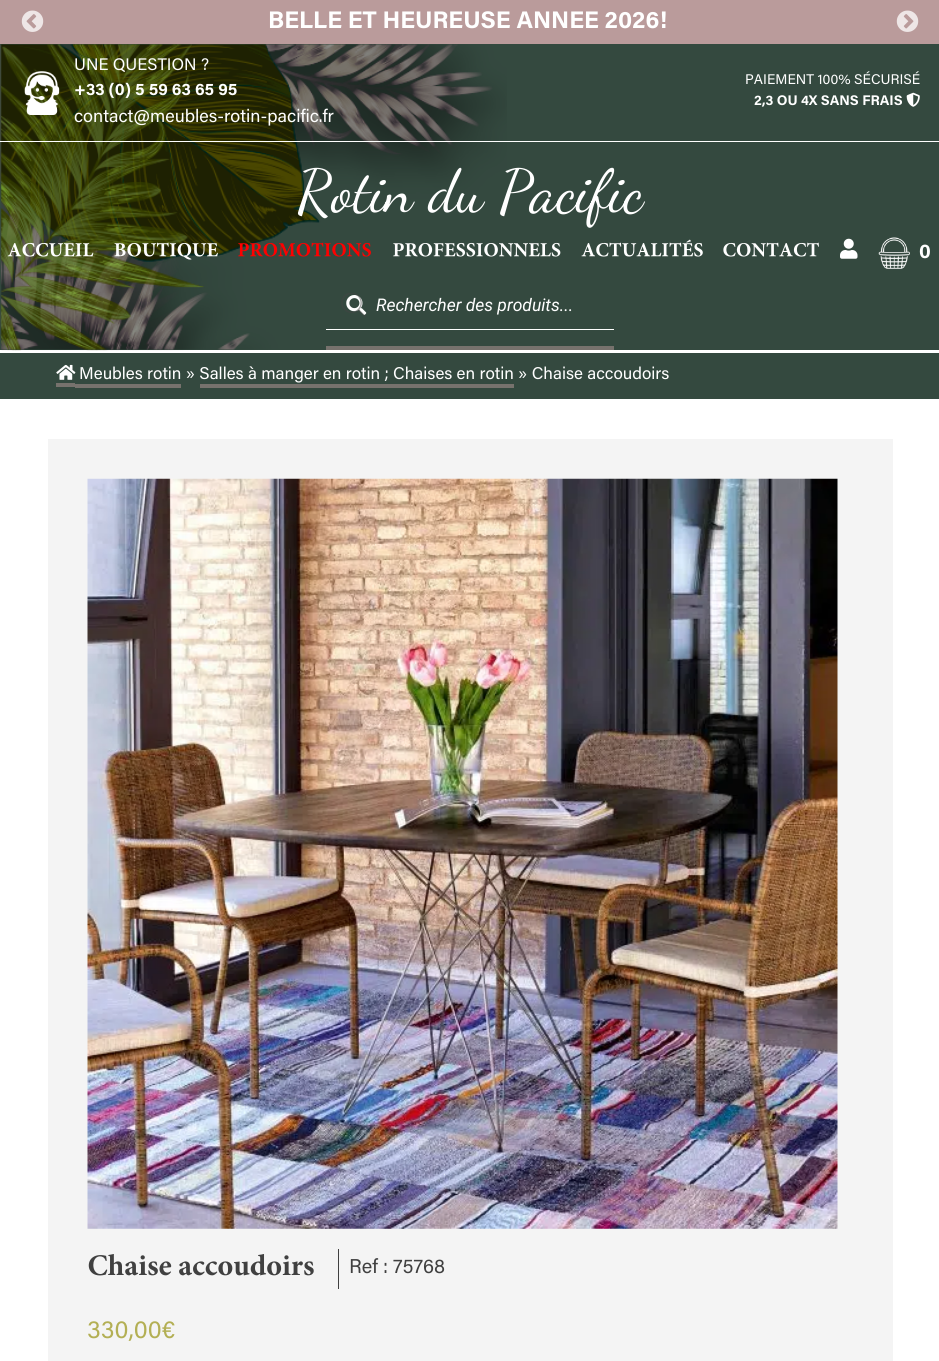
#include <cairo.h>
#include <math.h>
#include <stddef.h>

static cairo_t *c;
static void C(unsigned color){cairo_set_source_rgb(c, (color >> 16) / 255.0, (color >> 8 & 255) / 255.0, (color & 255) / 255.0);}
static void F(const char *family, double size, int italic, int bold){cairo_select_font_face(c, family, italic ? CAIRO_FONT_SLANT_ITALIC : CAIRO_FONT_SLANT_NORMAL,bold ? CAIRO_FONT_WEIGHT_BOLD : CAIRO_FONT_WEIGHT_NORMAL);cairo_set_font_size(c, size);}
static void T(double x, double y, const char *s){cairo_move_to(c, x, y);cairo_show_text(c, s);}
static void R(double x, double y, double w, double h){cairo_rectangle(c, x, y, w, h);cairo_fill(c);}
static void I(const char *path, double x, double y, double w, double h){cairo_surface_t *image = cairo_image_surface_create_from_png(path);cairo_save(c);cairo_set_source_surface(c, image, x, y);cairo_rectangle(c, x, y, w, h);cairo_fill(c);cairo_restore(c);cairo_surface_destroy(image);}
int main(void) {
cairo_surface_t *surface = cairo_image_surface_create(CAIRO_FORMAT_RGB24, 939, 1361);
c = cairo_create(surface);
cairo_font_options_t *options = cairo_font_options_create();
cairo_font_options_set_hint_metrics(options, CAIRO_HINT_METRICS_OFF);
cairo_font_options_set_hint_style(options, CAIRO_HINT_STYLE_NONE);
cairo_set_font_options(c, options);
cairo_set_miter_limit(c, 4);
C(0xffffff);
cairo_paint(c);
C(0xba9b9b);
R(0,0,939,44);
I("1.png",21,10,23,22);
F("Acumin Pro",24,0,1);
C(0xffffff);
T(268,28,"BELLE ET HEUREUSE ANNEE 2026!");
I("2.png",896,10,23,22);
C(0x34493f);
R(0,44,939,306);
I("3.png",0,44,507,307);
C(0xffffff);
R(0,141,939,1);
I("4.png",24,71,36,44);
F("Acumin Pro",16.75,0,0);
T(74,70,"UNE QUESTION ?");
F("Acumin Pro",16.75,0,1);
T(74,95,"+33 (0) 5 59 63 65 95");
F("Acumin Pro",18,0,0);
T(74,122,"contact@meubles-rotin-pacific.fr");
F("Acumin Pro",14,0,0);
T(745,84,"PAIEMENT 100% SÉCURISÉ");
F("Acumin Pro",14,0,1);
T(754,105,"2,3 OU 4X SANS FRAIS");
I("5.png",906,92,14,15);
F("Dancing Script",60,0,0);
T(297,211,"Rotin du Pacific");
I("6.png",7,242,87,15);
I("7.png",114,242,104,18);
I("8.png",238,242,133,15);
I("9.png",393,242,168,15);
I("10.png",581,239,122,18);
I("11.png",723,242,96,15);
I("12.png",840,238,18,21);
I("13.png",878,237,32,32);
F("Acumin Pro",20,0,1);
T(919,258,"0");
I("15.png",346,295,21,20);
I("14.png",341,293,25,24);
R(326,329,288,1);
F("Roboto",17.5,1,0);
T(376,311,"Rechercher des produits...");
C(0x77726d);
R(326,346,288,4);
C(0x34493f);
R(0,353,939,46);
C(0x77726d);
R(56,383,19,4);
R(75,384,106,4);
I("16.png",56,364,20,16);
F("Acumin Pro",17,0,0);
C(0xffffff);
T(79,379,"Meubles rotin » Salles à manger en rotin ; Chaises en rotin » Chaise accoudoirs");
C(0x77726d);
R(200,384,314,4);
C(0xf4f4f4);
R(48,439,845,922);
I("17.png",87,478,751,751);
I("18.png",88,1254,226,22);
C(0x404040);
R(338,1249,1,40);
F("Acumin Pro",20,0,0);
T(349,1273,"Ref : 75768");
F("Acumin Pro",25,0,0);
C(0xb3af54);
T(87,1338,"330,00€");
cairo_surface_write_to_png(surface, "o.png");
cairo_font_options_destroy(options);
cairo_destroy(c);
cairo_surface_destroy(surface);
return 0;
}
